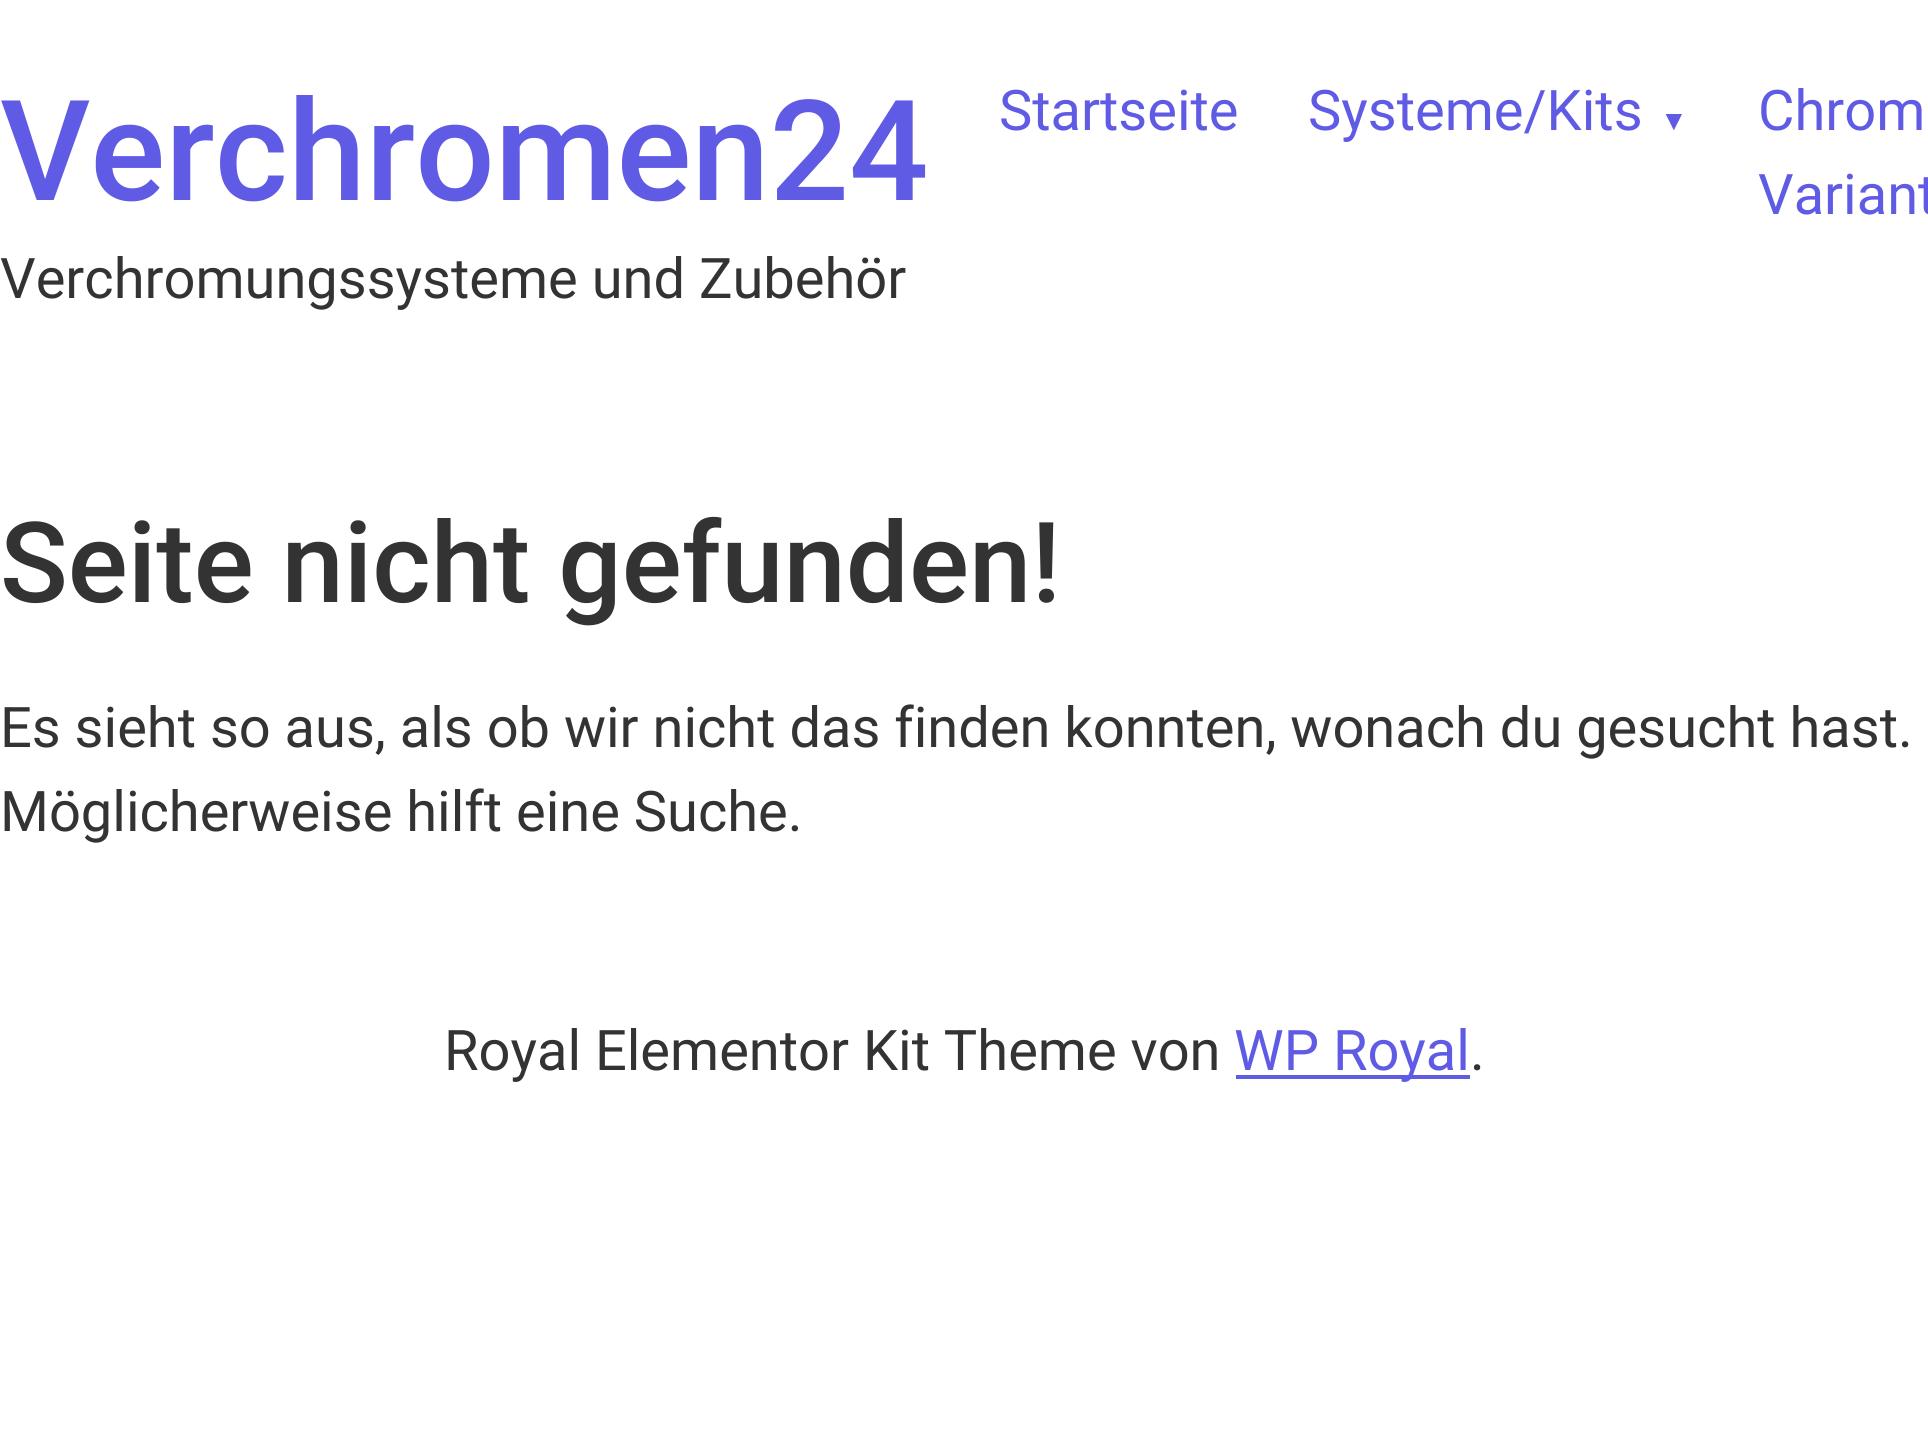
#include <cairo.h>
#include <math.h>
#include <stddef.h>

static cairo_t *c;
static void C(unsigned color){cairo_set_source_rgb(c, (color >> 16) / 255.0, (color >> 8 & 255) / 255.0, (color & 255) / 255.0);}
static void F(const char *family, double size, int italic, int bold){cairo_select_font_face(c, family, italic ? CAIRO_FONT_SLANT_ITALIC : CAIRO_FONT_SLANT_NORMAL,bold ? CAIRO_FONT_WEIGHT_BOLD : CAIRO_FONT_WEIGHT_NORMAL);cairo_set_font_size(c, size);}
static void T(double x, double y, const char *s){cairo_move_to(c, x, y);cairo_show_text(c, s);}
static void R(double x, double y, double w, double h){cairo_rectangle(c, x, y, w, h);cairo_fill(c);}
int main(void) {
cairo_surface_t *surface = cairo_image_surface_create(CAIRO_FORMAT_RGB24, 1928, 1436);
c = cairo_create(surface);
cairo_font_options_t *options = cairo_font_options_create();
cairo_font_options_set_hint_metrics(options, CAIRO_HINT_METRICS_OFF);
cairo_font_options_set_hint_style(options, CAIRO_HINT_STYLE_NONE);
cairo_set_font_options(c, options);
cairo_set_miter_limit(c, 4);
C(0xffffff);
cairo_paint(c);
F("Roboto Medium",140,0,0);
C(0x605be5);
T(0,200,"Verchromen24");
F("Roboto",56,0,0);
C(0x333333);
T(0,298,"Verchromungssysteme und Zubehör");
C(0x605be5);
T(999,130,"Startseite");
T(1308,130,"Systeme/Kits");
F("Liberation Sans",28,0,0);
T(1660,130,"▼");
F("Roboto",56,0,0);
T(1758,130,"Chrom");
T(1758,214,"Variant");
F("Roboto Medium",112,0,0);
C(0x333333);
T(0,602,"Seite nicht gefunden!");
F("Roboto",56,0,0);
T(0,747,"Es sieht so aus, als ob wir nicht das finden konnten, wonach du gesucht hast.");
T(0,831,"Möglicherweise hilft eine Suche.");
T(444,1070,"Royal Elementor Kit Theme von");
C(0x605be5);
R(1236,1075,234,4);
T(1234,1070,"WP Royal");
C(0x333333);
T(1470,1070,".");
cairo_surface_write_to_png(surface, "o.png");
cairo_font_options_destroy(options);
cairo_destroy(c);
cairo_surface_destroy(surface);
return 0;
}
